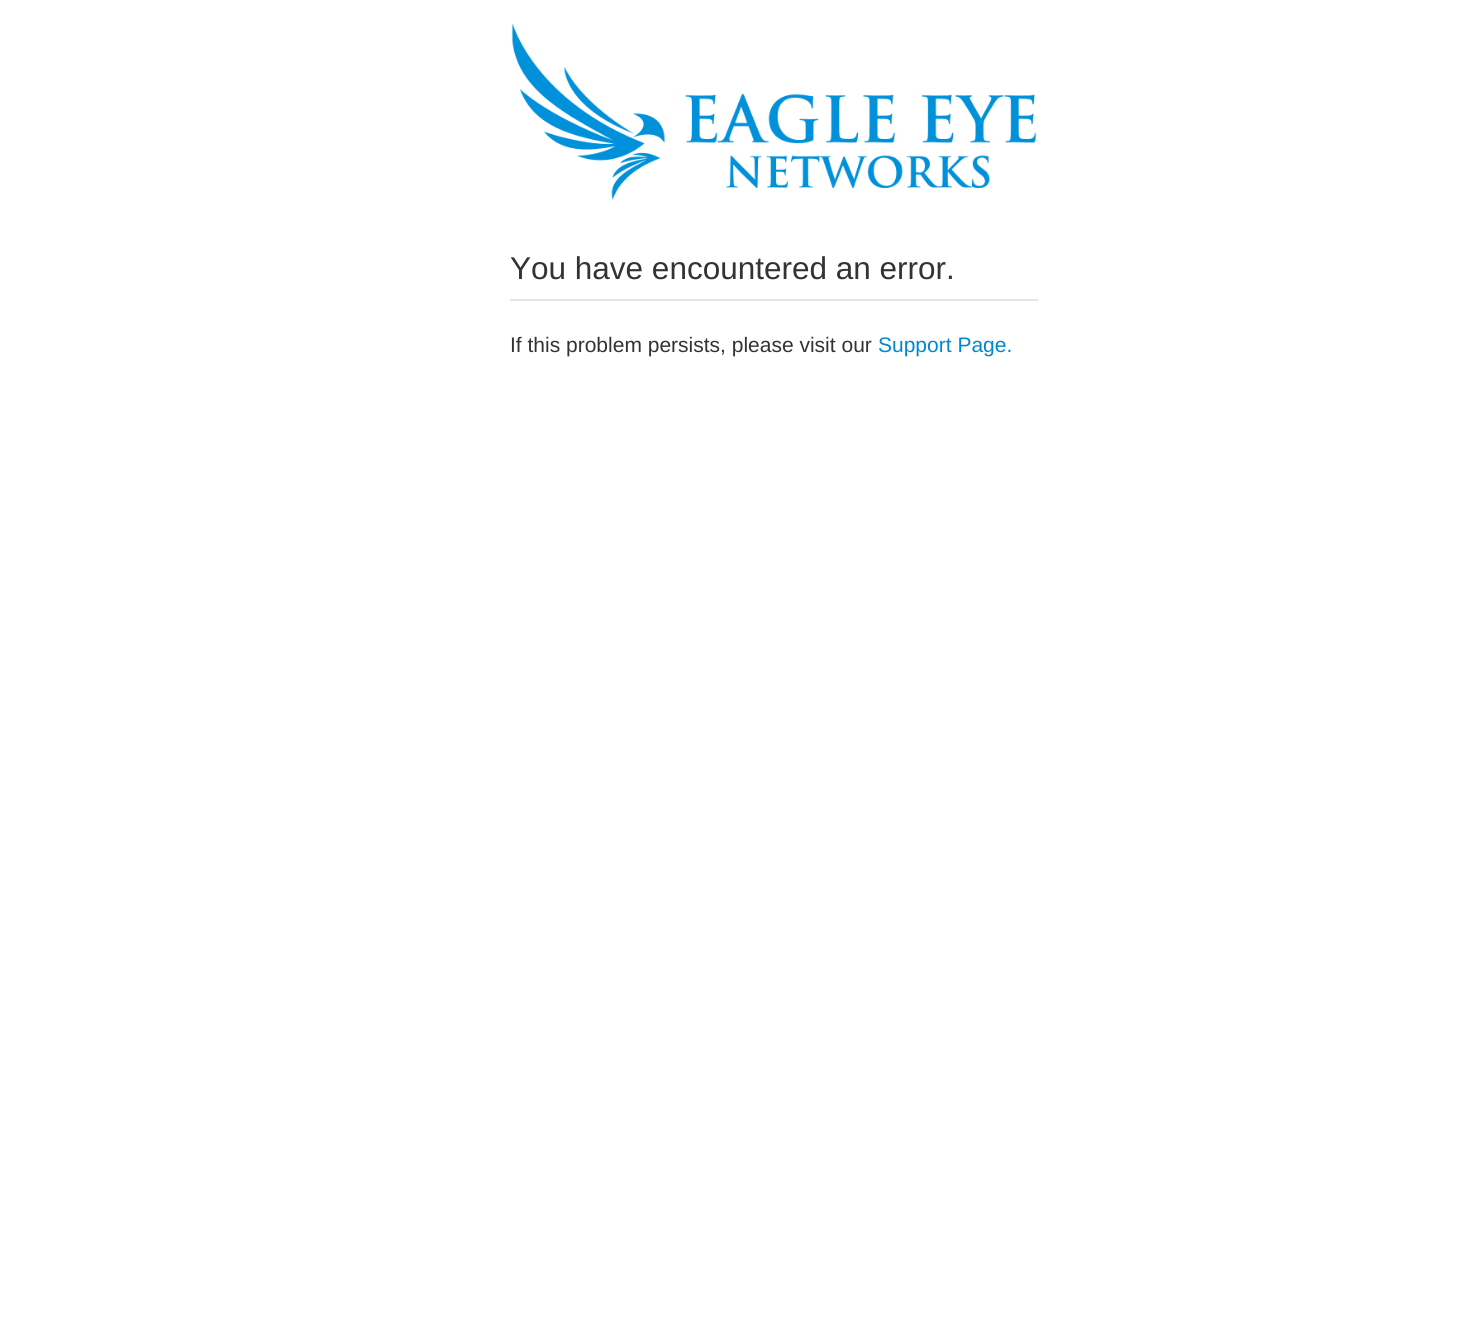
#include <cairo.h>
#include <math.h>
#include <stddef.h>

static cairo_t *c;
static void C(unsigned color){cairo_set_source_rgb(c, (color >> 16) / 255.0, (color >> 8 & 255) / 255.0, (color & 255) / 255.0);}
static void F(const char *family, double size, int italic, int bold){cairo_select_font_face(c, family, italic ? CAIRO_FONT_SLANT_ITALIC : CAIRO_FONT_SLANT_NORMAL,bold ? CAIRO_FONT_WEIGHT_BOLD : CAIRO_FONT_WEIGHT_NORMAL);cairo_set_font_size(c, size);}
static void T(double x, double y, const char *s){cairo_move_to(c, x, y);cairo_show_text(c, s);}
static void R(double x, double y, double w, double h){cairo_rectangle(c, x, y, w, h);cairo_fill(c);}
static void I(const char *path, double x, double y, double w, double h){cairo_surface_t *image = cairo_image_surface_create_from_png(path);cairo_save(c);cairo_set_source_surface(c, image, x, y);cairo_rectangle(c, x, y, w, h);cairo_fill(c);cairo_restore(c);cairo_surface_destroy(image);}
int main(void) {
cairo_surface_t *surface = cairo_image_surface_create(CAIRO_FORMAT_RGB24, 1458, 1341);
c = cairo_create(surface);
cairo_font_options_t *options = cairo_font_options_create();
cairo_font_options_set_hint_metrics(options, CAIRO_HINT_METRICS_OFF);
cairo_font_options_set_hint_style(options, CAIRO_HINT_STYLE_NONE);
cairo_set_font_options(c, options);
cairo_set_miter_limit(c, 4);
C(0xffffff);
cairo_paint(c);
I("1.png",511,23,526,177);
C(0xe5e5e5);
R(510,299,528,2);
F("Liberation Sans",31.5,0,0);
C(0x333333);
T(510,279,"You have encountered an error.");
F("Liberation Sans",21,0,0);
T(510,352,"If this problem persists, please visit our");
C(0x0088cc);
T(878,352,"Support Page.");
cairo_surface_write_to_png(surface, "o.png");
cairo_font_options_destroy(options);
cairo_destroy(c);
cairo_surface_destroy(surface);
return 0;
}
